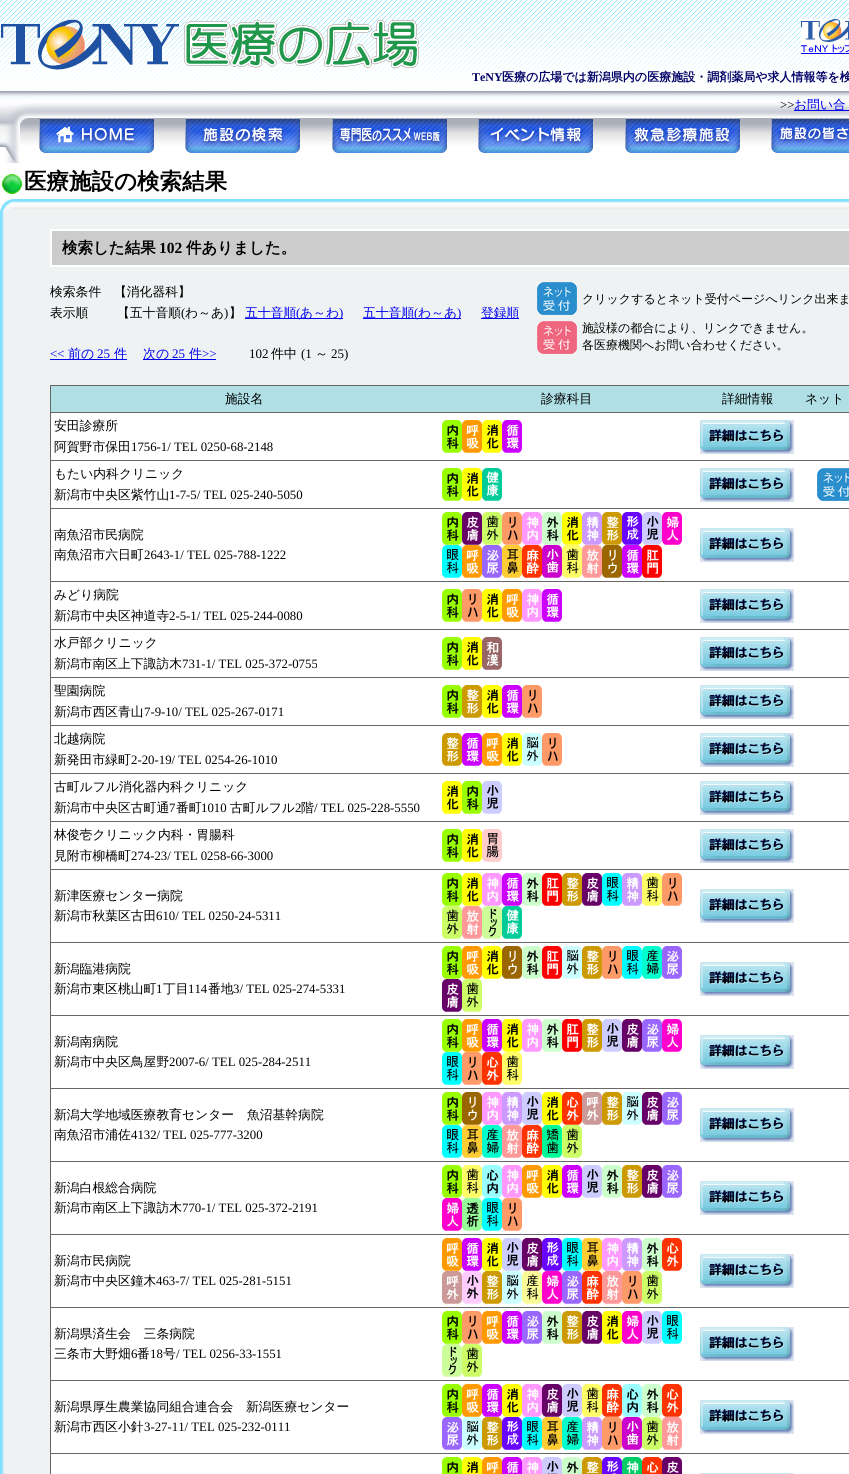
#include <cairo.h>
#include <math.h>
#include <stddef.h>

static cairo_t *c;
static void C(unsigned color){cairo_set_source_rgb(c, (color >> 16) / 255.0, (color >> 8 & 255) / 255.0, (color & 255) / 255.0);}
static void F(const char *family, double size, int italic, int bold){cairo_select_font_face(c, family, italic ? CAIRO_FONT_SLANT_ITALIC : CAIRO_FONT_SLANT_NORMAL,bold ? CAIRO_FONT_WEIGHT_BOLD : CAIRO_FONT_WEIGHT_NORMAL);cairo_set_font_size(c, size);}
static void T(double x, double y, const char *s){cairo_move_to(c, x, y);cairo_show_text(c, s);}
static void R(double x, double y, double w, double h){cairo_rectangle(c, x, y, w, h);cairo_fill(c);}
static void I(const char *path, double x, double y, double w, double h){cairo_surface_t *image = cairo_image_surface_create_from_png(path);cairo_save(c);cairo_set_source_surface(c, image, x, y);cairo_rectangle(c, x, y, w, h);cairo_fill(c);cairo_restore(c);cairo_surface_destroy(image);}
int main(void) {
cairo_surface_t *surface = cairo_image_surface_create(CAIRO_FORMAT_RGB24, 849, 1474);
c = cairo_create(surface);
cairo_font_options_t *options = cairo_font_options_create();
cairo_font_options_set_hint_metrics(options, CAIRO_HINT_METRICS_OFF);
cairo_font_options_set_hint_style(options, CAIRO_HINT_STYLE_NONE);
cairo_set_font_options(c, options);
cairo_set_miter_limit(c, 4);
C(0xffffff);
cairo_paint(c);
I("1.png",0,0,849,147);
I("2.png",1,19,418,51);
I("3.png",801,19,48,37);
F("Liberation Serif",12,0,1);
C(0x000066);
T(472,81,"TeNY");
F("WenQuanYi Zen Hei",12,0,1);
T(502,81,"医療の広場では新潟県内の医療施設・調剤薬局や求人情報等を検");
I("4.png",1,102,848,61);
F("Liberation Serif",12.8,0,0);
C(0x000000);
T(780,109,">>");
C(0x0000ee);
R(794,110,55,1);
F("WenQuanYi Zen Hei Medium",12.8,0,0);
T(794,109,"お問い合");
I("5.png",39,119,115,34);
I("6.png",185,119,115,34);
I("7.png",332,119,115,34);
I("8.png",478,119,115,34);
I("9.png",625,119,115,34);
I("10.png",771,119,78,34);
I("11.png",2,174,20,20);
F("WenQuanYi Zen Hei",22.5,0,1);
C(0x000000);
T(24,189,"医療施設の検索結果");
I("12.png",0,199,849,15);
I("13.png",0,214,849,1260);
C(0xcccccc);
cairo_rectangle(c,51,230,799,36);
cairo_fill_preserve(c);
C(0xffffff);
cairo_stroke(c);
F("WenQuanYi Zen Hei",15.5,0,1);
C(0x000000);
T(62,253,"検索した結果");
F("Liberation Serif",15.5,0,1);
T(159,253,"102");
F("WenQuanYi Zen Hei",15.5,0,1);
T(186,253,"件ありました。");
F("WenQuanYi Zen Hei Medium",12.8,0,0);
T(50,296,"検索条件");
T(114,296,"【消化器科】");
T(50,317,"表示順");
T(117,317,"【五十音順");
F("Liberation Serif",12.8,0,0);
T(181,317,"(");
F("WenQuanYi Zen Hei Medium",12.8,0,0);
T(185,317,"わ～あ");
F("Liberation Serif",12.8,0,0);
T(224,317,")");
F("WenQuanYi Zen Hei Medium",12.8,0,0);
T(229,317,"】");
C(0x0000ee);
R(245,318,98,1);
T(245,317,"五十音順");
F("Liberation Serif",12.8,0,0);
T(296,317,"(");
F("WenQuanYi Zen Hei Medium",12.8,0,0);
T(300,317,"あ～わ");
F("Liberation Serif",12.8,0,0);
T(339,317,")");
R(363,318,98,1);
F("WenQuanYi Zen Hei Medium",12.8,0,0);
T(363,317,"五十音順");
F("Liberation Serif",12.8,0,0);
T(414,317,"(");
F("WenQuanYi Zen Hei Medium",12.8,0,0);
T(418,317,"わ～あ");
F("Liberation Serif",12.8,0,0);
T(457,317,")");
R(481,318,38,1);
F("WenQuanYi Zen Hei Medium",12.8,0,0);
T(481,317,"登録順");
F("Liberation Serif",13,0,0);
T(50,358,"<<");
R(50,359,77,1);
F("WenQuanYi Zen Hei Medium",13,0,0);
T(68,358,"前の");
F("Liberation Serif",13,0,0);
T(97,358,"25");
F("WenQuanYi Zen Hei Medium",13,0,0);
T(114,358,"件");
R(143,359,73,1);
T(143,358,"次の");
F("Liberation Serif",13,0,0);
T(172,358,"25");
F("WenQuanYi Zen Hei Medium",13,0,0);
T(189,358,"件");
F("Liberation Serif",13,0,0);
T(202,358,">>");
C(0x000000);
T(249,358,"102");
F("WenQuanYi Zen Hei Medium",13,0,0);
T(271,358,"件中");
F("Liberation Serif",13,0,0);
T(301,358,"(1");
F("WenQuanYi Zen Hei Medium",13,0,0);
T(315,358,"～");
F("Liberation Serif",13,0,0);
T(331,358,"25)");
I("14.png",537,282,40,33);
F("WenQuanYi Zen Hei Medium",12,0,0);
T(582,303,"クリックするとネット受付ページへリンク出来ま");
I("15.png",537,321,40,33);
T(582,332,"施設様の都合により、リンクできません。");
T(582,349,"各医療機関へお問い合わせください。");
C(0x666666);
R(50,385,799,1089);
C(0xb0e0e6);
R(51,386,798,26);
F("WenQuanYi Zen Hei Medium",12.8,0,0);
C(0x000000);
T(225,403,"施設名");
T(541,403,"診療科目");
T(722,403,"詳細情報");
T(805,403,"ネット");
C(0xffffff);
R(51,413,798,47);
C(0x000000);
T(54,430,"安田診療所");
T(54,451,"阿賀野市保田");
F("Liberation Serif",12.8,0,0);
T(131,451,"1756-1/ TEL 0250-68-2148");
I("16.png",442,420,20,33);
I("17.png",462,420,20,33);
I("18.png",482,420,20,33);
I("19.png",502,420,20,33);
I("20.png",700,420,94,34);
C(0xffffff);
R(51,461,798,47);
F("WenQuanYi Zen Hei Medium",12.8,0,0);
C(0x000000);
T(54,478,"もたい内科クリニック");
T(54,499,"新潟市中央区紫竹山");
F("Liberation Serif",12.8,0,0);
T(169,499,"1-7-5/ TEL 025-240-5050");
I("16.png",442,468,20,33);
I("18.png",462,468,20,33);
I("21.png",482,468,20,33);
I("20.png",700,468,94,34);
I("22.png",817,468,32,33);
C(0xffffff);
R(51,509,798,72);
F("WenQuanYi Zen Hei Medium",12.8,0,0);
C(0x000000);
T(54,539,"南魚沼市民病院");
T(54,559,"南魚沼市六日町");
F("Liberation Serif",12.8,0,0);
T(144,559,"2643-1/ TEL 025-788-1222");
I("16.png",442,512,20,33);
I("23.png",462,512,20,33);
I("24.png",482,512,20,33);
I("25.png",502,512,20,33);
I("26.png",522,512,20,33);
I("27.png",542,512,20,33);
I("18.png",562,512,20,33);
I("28.png",582,512,20,33);
I("29.png",602,512,20,33);
I("30.png",622,512,20,33);
I("31.png",642,512,20,33);
I("32.png",662,512,20,33);
I("33.png",442,545,20,33);
I("17.png",462,545,20,33);
I("34.png",482,545,20,33);
I("35.png",502,545,20,33);
I("36.png",522,545,20,33);
I("37.png",542,545,20,33);
I("38.png",562,545,20,33);
I("39.png",582,545,20,33);
I("40.png",602,545,20,33);
I("19.png",622,545,20,33);
I("41.png",642,545,20,33);
I("20.png",700,528,94,34);
C(0xffffff);
R(51,582,798,47);
F("WenQuanYi Zen Hei Medium",12.8,0,0);
C(0x000000);
T(54,599,"みどり病院");
T(54,620,"新潟市中央区神道寺");
F("Liberation Serif",12.8,0,0);
T(169,620,"2-5-1/ TEL 025-244-0080");
I("16.png",442,589,20,33);
I("25.png",462,589,20,33);
I("18.png",482,589,20,33);
I("17.png",502,589,20,33);
I("26.png",522,589,20,33);
I("19.png",542,589,20,33);
I("20.png",700,589,94,34);
C(0xffffff);
R(51,630,798,47);
F("WenQuanYi Zen Hei Medium",12.8,0,0);
C(0x000000);
T(54,647,"水戸部クリニック");
T(54,668,"新潟市南区上下諏訪木");
F("Liberation Serif",12.8,0,0);
T(182,668,"731-1/ TEL 025-372-0755");
I("16.png",442,637,20,33);
I("18.png",462,637,20,33);
I("42.png",482,637,20,33);
I("20.png",700,637,94,34);
C(0xffffff);
R(51,678,798,47);
F("WenQuanYi Zen Hei Medium",12.8,0,0);
C(0x000000);
T(54,695,"聖園病院");
T(54,716,"新潟市西区青山");
F("Liberation Serif",12.8,0,0);
T(144,716,"7-9-10/ TEL 025-267-0171");
I("16.png",442,685,20,33);
I("29.png",462,685,20,33);
I("18.png",482,685,20,33);
I("19.png",502,685,20,33);
I("25.png",522,685,20,33);
I("20.png",700,685,94,34);
C(0xffffff);
R(51,726,798,47);
F("WenQuanYi Zen Hei Medium",12.8,0,0);
C(0x000000);
T(54,743,"北越病院");
T(54,764,"新発田市緑町");
F("Liberation Serif",12.8,0,0);
T(131,764,"2-20-19/ TEL 0254-26-1010");
I("29.png",442,733,20,33);
I("19.png",462,733,20,33);
I("17.png",482,733,20,33);
I("18.png",502,733,20,33);
I("43.png",522,733,20,33);
I("25.png",542,733,20,33);
I("20.png",700,733,94,34);
C(0xffffff);
R(51,774,798,47);
F("WenQuanYi Zen Hei Medium",12.8,0,0);
C(0x000000);
T(54,791,"古町ルフル消化器内科クリニック");
T(54,812,"新潟市中央区古町通");
F("Liberation Serif",12.8,0,0);
T(169,812,"7");
F("WenQuanYi Zen Hei Medium",12.8,0,0);
T(176,812,"番町");
F("Liberation Serif",12.8,0,0);
T(201,812,"1010");
F("WenQuanYi Zen Hei Medium",12.8,0,0);
T(230,812,"古町ルフル");
F("Liberation Serif",12.8,0,0);
T(295,812,"2");
F("WenQuanYi Zen Hei Medium",12.8,0,0);
T(301,812,"階");
F("Liberation Serif",12.8,0,0);
T(314,812,"/ TEL 025-228-5550");
I("18.png",442,781,20,33);
I("16.png",462,781,20,33);
I("31.png",482,781,20,33);
I("20.png",700,781,94,34);
C(0xffffff);
R(51,822,798,47);
F("WenQuanYi Zen Hei Medium",12.8,0,0);
C(0x000000);
T(54,839,"林俊壱クリニック内科・胃腸科");
T(54,860,"見附市柳橋町");
F("Liberation Serif",12.8,0,0);
T(131,860,"274-23/ TEL 0258-66-3000");
I("16.png",442,829,20,33);
I("18.png",462,829,20,33);
I("44.png",482,829,20,33);
I("20.png",700,829,94,34);
C(0xffffff);
R(51,870,798,72);
F("WenQuanYi Zen Hei Medium",12.8,0,0);
C(0x000000);
T(54,900,"新津医療センター病院");
T(54,920,"新潟市秋葉区古田");
F("Liberation Serif",12.8,0,0);
T(156,920,"610/ TEL 0250-24-5311");
I("16.png",442,873,20,33);
I("18.png",462,873,20,33);
I("26.png",482,873,20,33);
I("19.png",502,873,20,33);
I("27.png",522,873,20,33);
I("41.png",542,873,20,33);
I("29.png",562,873,20,33);
I("23.png",582,873,20,33);
I("33.png",602,873,20,33);
I("28.png",622,873,20,33);
I("38.png",642,873,20,33);
I("25.png",662,873,20,33);
I("24.png",442,906,20,33);
I("39.png",462,906,20,33);
I("45.png",482,906,20,33);
I("21.png",502,906,20,33);
I("20.png",700,889,94,34);
C(0xffffff);
R(51,943,798,72);
F("WenQuanYi Zen Hei Medium",12.8,0,0);
C(0x000000);
T(54,973,"新潟臨港病院");
T(54,993,"新潟市東区桃山町");
F("Liberation Serif",12.8,0,0);
T(156,993,"1");
F("WenQuanYi Zen Hei Medium",12.8,0,0);
T(163,993,"丁目");
F("Liberation Serif",12.8,0,0);
T(188,993,"114");
F("WenQuanYi Zen Hei Medium",12.8,0,0);
T(208,993,"番地");
F("Liberation Serif",12.8,0,0);
T(233,993,"3/ TEL 025-274-5331");
I("16.png",442,946,20,33);
I("17.png",462,946,20,33);
I("18.png",482,946,20,33);
I("40.png",502,946,20,33);
I("27.png",522,946,20,33);
I("41.png",542,946,20,33);
I("43.png",562,946,20,33);
I("29.png",582,946,20,33);
I("25.png",602,946,20,33);
I("33.png",622,946,20,33);
I("46.png",642,946,20,33);
I("34.png",662,946,20,33);
I("23.png",442,979,20,33);
I("24.png",462,979,20,33);
I("20.png",700,962,94,34);
C(0xffffff);
R(51,1016,798,72);
F("WenQuanYi Zen Hei Medium",12.8,0,0);
C(0x000000);
T(54,1046,"新潟南病院");
T(54,1066,"新潟市中央区鳥屋野");
F("Liberation Serif",12.8,0,0);
T(169,1066,"2007-6/ TEL 025-284-2511");
I("16.png",442,1019,20,33);
I("17.png",462,1019,20,33);
I("19.png",482,1019,20,33);
I("18.png",502,1019,20,33);
I("26.png",522,1019,20,33);
I("27.png",542,1019,20,33);
I("41.png",562,1019,20,33);
I("29.png",582,1019,20,33);
I("31.png",602,1019,20,33);
I("23.png",622,1019,20,33);
I("34.png",642,1019,20,33);
I("32.png",662,1019,20,33);
I("33.png",442,1052,20,33);
I("25.png",462,1052,20,33);
I("47.png",482,1052,20,33);
I("38.png",502,1052,20,33);
I("20.png",700,1035,94,34);
C(0xffffff);
R(51,1089,798,72);
F("WenQuanYi Zen Hei Medium",12.8,0,0);
C(0x000000);
T(54,1119,"新潟大学地域医療教育センター　魚沼基幹病院");
T(54,1139,"南魚沼市浦佐");
F("Liberation Serif",12.8,0,0);
T(131,1139,"4132/ TEL 025-777-3200");
I("16.png",442,1092,20,33);
I("40.png",462,1092,20,33);
I("26.png",482,1092,20,33);
I("28.png",502,1092,20,33);
I("31.png",522,1092,20,33);
I("18.png",542,1092,20,33);
I("47.png",562,1092,20,33);
I("48.png",582,1092,20,33);
I("29.png",602,1092,20,33);
I("43.png",622,1092,20,33);
I("23.png",642,1092,20,33);
I("34.png",662,1092,20,33);
I("33.png",442,1125,20,33);
I("35.png",462,1125,20,33);
I("46.png",482,1125,20,33);
I("39.png",502,1125,20,33);
I("36.png",522,1125,20,33);
I("49.png",542,1125,20,33);
I("24.png",562,1125,20,33);
I("20.png",700,1108,94,34);
C(0xffffff);
R(51,1162,798,72);
F("WenQuanYi Zen Hei Medium",12.8,0,0);
C(0x000000);
T(54,1192,"新潟白根総合病院");
T(54,1212,"新潟市南区上下諏訪木");
F("Liberation Serif",12.8,0,0);
T(182,1212,"770-1/ TEL 025-372-2191");
I("16.png",442,1165,20,33);
I("38.png",462,1165,20,33);
I("50.png",482,1165,20,33);
I("26.png",502,1165,20,33);
I("17.png",522,1165,20,33);
I("18.png",542,1165,20,33);
I("19.png",562,1165,20,33);
I("31.png",582,1165,20,33);
I("27.png",602,1165,20,33);
I("29.png",622,1165,20,33);
I("23.png",642,1165,20,33);
I("34.png",662,1165,20,33);
I("32.png",442,1198,20,33);
I("51.png",462,1198,20,33);
I("33.png",482,1198,20,33);
I("25.png",502,1198,20,33);
I("20.png",700,1181,94,34);
C(0xffffff);
R(51,1235,798,72);
F("WenQuanYi Zen Hei Medium",12.8,0,0);
C(0x000000);
T(54,1265,"新潟市民病院");
T(54,1285,"新潟市中央区鐘木");
F("Liberation Serif",12.8,0,0);
T(156,1285,"463-7/ TEL 025-281-5151");
I("17.png",442,1238,20,33);
I("19.png",462,1238,20,33);
I("18.png",482,1238,20,33);
I("31.png",502,1238,20,33);
I("23.png",522,1238,20,33);
I("30.png",542,1238,20,33);
I("33.png",562,1238,20,33);
I("35.png",582,1238,20,33);
I("26.png",602,1238,20,33);
I("28.png",622,1238,20,33);
I("27.png",642,1238,20,33);
I("47.png",662,1238,20,33);
I("48.png",442,1271,20,33);
I("52.png",462,1271,20,33);
I("29.png",482,1271,20,33);
I("43.png",502,1271,20,33);
I("53.png",522,1271,20,33);
I("32.png",542,1271,20,33);
I("34.png",562,1271,20,33);
I("36.png",582,1271,20,33);
I("39.png",602,1271,20,33);
I("25.png",622,1271,20,33);
I("24.png",642,1271,20,33);
I("20.png",700,1254,94,34);
C(0xffffff);
R(51,1308,798,72);
F("WenQuanYi Zen Hei Medium",12.8,0,0);
C(0x000000);
T(54,1338,"新潟県済生会　三条病院");
T(54,1358,"三条市大野畑");
F("Liberation Serif",12.8,0,0);
T(131,1358,"6");
F("WenQuanYi Zen Hei Medium",12.8,0,0);
T(137,1358,"番");
F("Liberation Serif",12.8,0,0);
T(150,1358,"18");
F("WenQuanYi Zen Hei Medium",12.8,0,0);
T(163,1358,"号");
F("Liberation Serif",12.8,0,0);
T(176,1358,"/ TEL 0256-33-1551");
I("16.png",442,1311,20,33);
I("25.png",462,1311,20,33);
I("17.png",482,1311,20,33);
I("19.png",502,1311,20,33);
I("34.png",522,1311,20,33);
I("27.png",542,1311,20,33);
I("29.png",562,1311,20,33);
I("23.png",582,1311,20,33);
I("18.png",602,1311,20,33);
I("32.png",622,1311,20,33);
I("31.png",642,1311,20,33);
I("33.png",662,1311,20,33);
I("45.png",442,1344,20,33);
I("24.png",462,1344,20,33);
I("20.png",700,1327,94,34);
C(0xffffff);
R(51,1381,798,72);
F("WenQuanYi Zen Hei Medium",12.8,0,0);
C(0x000000);
T(54,1411,"新潟県厚生農業協同組合連合会　新潟医療センター");
T(54,1431,"新潟市西区小針");
F("Liberation Serif",12.8,0,0);
T(144,1431,"3-27-11/ TEL 025-232-0111");
I("16.png",442,1384,20,33);
I("17.png",462,1384,20,33);
I("19.png",482,1384,20,33);
I("18.png",502,1384,20,33);
I("26.png",522,1384,20,33);
I("23.png",542,1384,20,33);
I("31.png",562,1384,20,33);
I("38.png",582,1384,20,33);
I("36.png",602,1384,20,33);
I("50.png",622,1384,20,33);
I("27.png",642,1384,20,33);
I("47.png",662,1384,20,33);
I("34.png",442,1417,20,33);
I("43.png",462,1417,20,33);
I("29.png",482,1417,20,33);
I("30.png",502,1417,20,33);
I("33.png",522,1417,20,33);
I("35.png",542,1417,20,33);
I("46.png",562,1417,20,33);
I("28.png",582,1417,20,33);
I("25.png",602,1417,20,33);
I("37.png",622,1417,20,33);
I("24.png",642,1417,20,33);
I("39.png",662,1417,20,33);
I("20.png",700,1400,94,34);
C(0xffffff);
R(51,1454,798,20);
I("54.png",442,1457,20,17);
I("55.png",462,1457,20,17);
I("56.png",482,1457,20,17);
I("57.png",502,1457,20,17);
I("58.png",522,1457,20,17);
I("59.png",542,1457,20,17);
I("60.png",562,1457,20,17);
I("61.png",582,1457,20,17);
I("62.png",602,1457,20,17);
I("63.png",622,1457,20,17);
I("64.png",642,1457,20,17);
I("65.png",662,1457,20,17);
I("66.png",700,1473,94,1);
cairo_surface_write_to_png(surface, "o.png");
cairo_font_options_destroy(options);
cairo_destroy(c);
cairo_surface_destroy(surface);
return 0;
}
